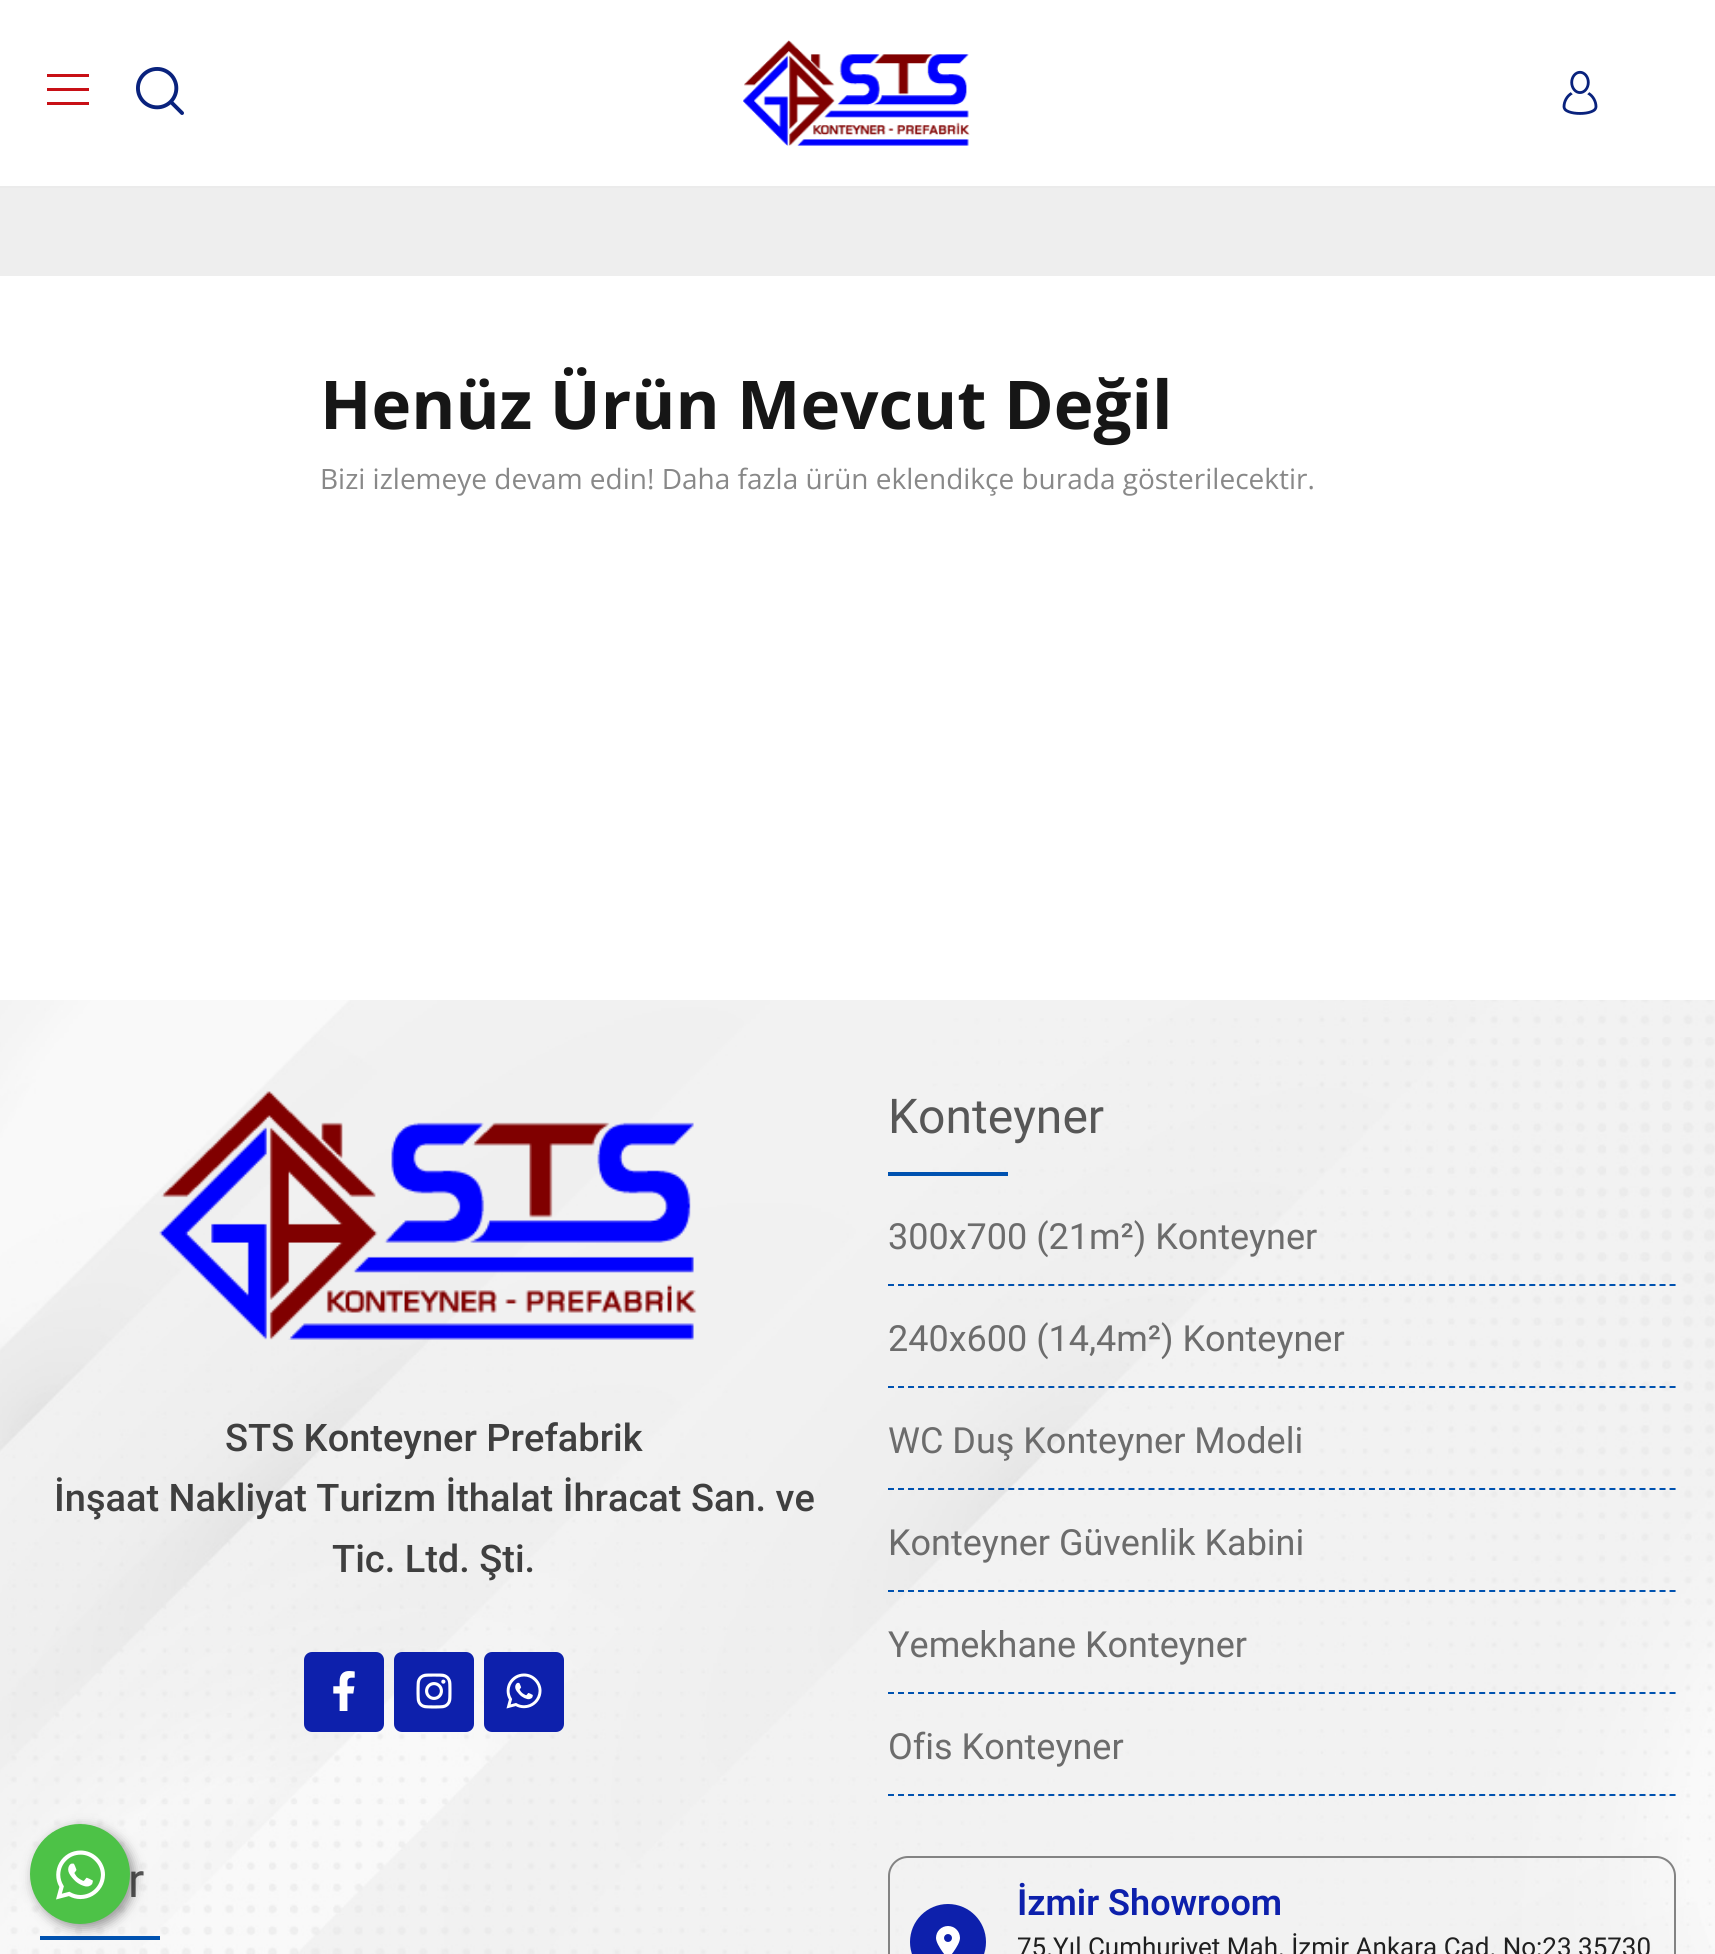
#include <cairo.h>
#include <math.h>
#include <stddef.h>

static cairo_t *c;
static void C(unsigned color){cairo_set_source_rgb(c, (color >> 16) / 255.0, (color >> 8 & 255) / 255.0, (color & 255) / 255.0);}
static void F(const char *family, double size, int italic, int bold){cairo_select_font_face(c, family, italic ? CAIRO_FONT_SLANT_ITALIC : CAIRO_FONT_SLANT_NORMAL,bold ? CAIRO_FONT_WEIGHT_BOLD : CAIRO_FONT_WEIGHT_NORMAL);cairo_set_font_size(c, size);}
static void T(double x, double y, const char *s){cairo_move_to(c, x, y);cairo_show_text(c, s);}
static void R(double x, double y, double w, double h){cairo_rectangle(c, x, y, w, h);cairo_fill(c);}
static void Q(double x, double y, double w, double h, double r){cairo_new_sub_path(c);cairo_arc(c, x + w - r, y + h - r, r, 0, M_PI / 2);cairo_arc(c, x + r, y + h - r, r, M_PI / 2, M_PI);cairo_arc(c, x + r, y + r, r, M_PI, 1.5 * M_PI);cairo_arc(c, x + w - r, y + r, r, 1.5 * M_PI, 2 * M_PI);cairo_close_path(c);}
static void S(double x, double y, double w, double h, double r, double blur, double alpha){cairo_push_group_with_content(c, CAIRO_CONTENT_ALPHA);cairo_set_operator(c, CAIRO_OPERATOR_SOURCE);for (int i = 15; i >= -15 && fmin(w, h) + blur * i / 3 > 0; i -= 2) {double e = blur * i / 6;cairo_set_source_rgba(c, 0, 0, 0, alpha * erfc((i - 1) / 8.5) / 2);Q(x - e, y - e, w + 2 * e, h + 2 * e, fmax(0, fmin(r + e + blur * .6, fmin(w, h) / 2 + e)));cairo_fill(c);}cairo_pattern_t *soft = cairo_pop_group(c);cairo_mask(c, soft);cairo_pattern_destroy(soft);}
static void I(const char *path, double x, double y, double w, double h){cairo_surface_t *image = cairo_image_surface_create_from_png(path);cairo_save(c);cairo_set_source_surface(c, image, x, y);cairo_rectangle(c, x, y, w, h);cairo_fill(c);cairo_restore(c);cairo_surface_destroy(image);}
int main(void) {
cairo_surface_t *surface = cairo_image_surface_create(CAIRO_FORMAT_RGB24, 1715, 1954);
c = cairo_create(surface);
cairo_font_options_t *options = cairo_font_options_create();
cairo_font_options_set_hint_metrics(options, CAIRO_HINT_METRICS_OFF);
cairo_font_options_set_hint_style(options, CAIRO_HINT_STYLE_NONE);
cairo_set_font_options(c, options);
cairo_set_miter_limit(c, 4);
C(0xffffff);
cairo_paint(c);
C(0xebebeb);
R(0,186,1715,2);
C(0xc81016);
cairo_new_path(c);
cairo_move_to(c,47,74);
cairo_line_to(c,47,77);
cairo_line_to(c,89,77);
cairo_line_to(c,89,74);
cairo_close_path(c);
cairo_move_to(c,47,88);
cairo_line_to(c,47,91);
cairo_line_to(c,89,91);
cairo_line_to(c,89,88);
cairo_close_path(c);
cairo_move_to(c,47,102);
cairo_line_to(c,47,105);
cairo_line_to(c,89,105);
cairo_line_to(c,89,102);
cairo_close_path(c);
cairo_fill(c);
I("1.png",136,67,48,48);
I("2.png",743,40,227,106);
I("3.png",1562,70,36,45);
C(0xeeeeee);
R(0,188,1715,88);
F("Open Sans",67.25,0,1);
C(0x161616);
T(320,429,"Henüz Ürün Mevcut Değil");
F("Open Sans",28,0,0);
C(0x888888);
T(320,489,"Bizi izlemeye devam edin! Daha fazla ürün eklendikçe burada gösterilecektir.");
I("4.png",0,1000,1715,954);
I("5.png",159,1091,538,249);
F("Roboto Medium",38,0,0);
C(0x3f3f3f);
T(225,1451,"STS Konteyner Prefabrik");
T(54,1511,"İnşaat Nakliyat Turizm İthalat İhracat San. ve");
T(332,1572,"Tic. Ltd. Şti.");
C(0x0d20ac);
Q(304,1652,80,80,8);
cairo_fill(c);
I("6.png",333,1671,22,40);
Q(394,1652,80,80,8);
cairo_fill(c);
I("7.png",416,1673,36,36);
Q(484,1652,80,80,8);
cairo_fill(c);
I("8.png",506,1673,36,36);
F("Roboto",48,0,0);
C(0x575757);
T(888,1133,"Konteyner");
C(0x0052b0);
R(888,1172,120,4);
cairo_new_path(c);
cairo_move_to(c,888,1285);
cairo_line_to(c,1676,1285);
cairo_set_dash(c,(double[]){6,4.02},2,0);
cairo_stroke(c);
F("Roboto",36,0,0);
C(0x6c6c6c);
T(888,1249,"300x700 (21m²) Konteyner");
cairo_new_path(c);
cairo_move_to(c,888,1387);
cairo_line_to(c,1676,1387);
C(0x0052b0);
cairo_stroke(c);
C(0x6c6c6c);
T(888,1351,"240x600 (14,4m²) Konteyner");
cairo_new_path(c);
cairo_move_to(c,888,1489);
cairo_line_to(c,1676,1489);
C(0x0052b0);
cairo_stroke(c);
C(0x6c6c6c);
T(888,1453,"WC Duş Konteyner Modeli");
cairo_new_path(c);
cairo_move_to(c,888,1591);
cairo_line_to(c,1676,1591);
C(0x0052b0);
cairo_stroke(c);
C(0x6c6c6c);
T(888,1555,"Konteyner Güvenlik Kabini");
cairo_new_path(c);
cairo_move_to(c,888,1693);
cairo_line_to(c,1676,1693);
C(0x0052b0);
cairo_stroke(c);
C(0x6c6c6c);
T(888,1657,"Yemekhane Konteyner");
cairo_new_path(c);
cairo_move_to(c,888,1795);
cairo_line_to(c,1676,1795);
C(0x0052b0);
cairo_stroke(c);
C(0x6c6c6c);
T(888,1759,"Ofis Konteyner");
F("Roboto",48,0,0);
C(0x575757);
T(128,1897,"r");
C(0x0052b0);
R(40,1936,120,4);
Q(889,1857,786,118,19);
C(0x838383);
cairo_set_dash(c,NULL,0,0);
cairo_stroke(c);
C(0x0d20ac);
cairo_arc(c,948,1942,38,0,2 * M_PI);
cairo_fill(c);
I("9.png",936,1926,24,28);
F("Roboto SemiBold",36,0,0);
T(1017,1915,"İzmir Showroom");
F("Roboto",26,0,0);
C(0x202020);
T(1017,1956,"75.Yıl Cumhuriyet Mah. İzmir Ankara Cad. No:23 35730");
C(0x000000);
S(34,1828,100,100,50,6,.4);
C(0x4dc247);
cairo_arc(c,80,1874,50,0,2 * M_PI);
cairo_fill(c);
I("10.png",56,1850,49,50);
cairo_surface_write_to_png(surface, "o.png");
cairo_font_options_destroy(options);
cairo_destroy(c);
cairo_surface_destroy(surface);
return 0;
}
